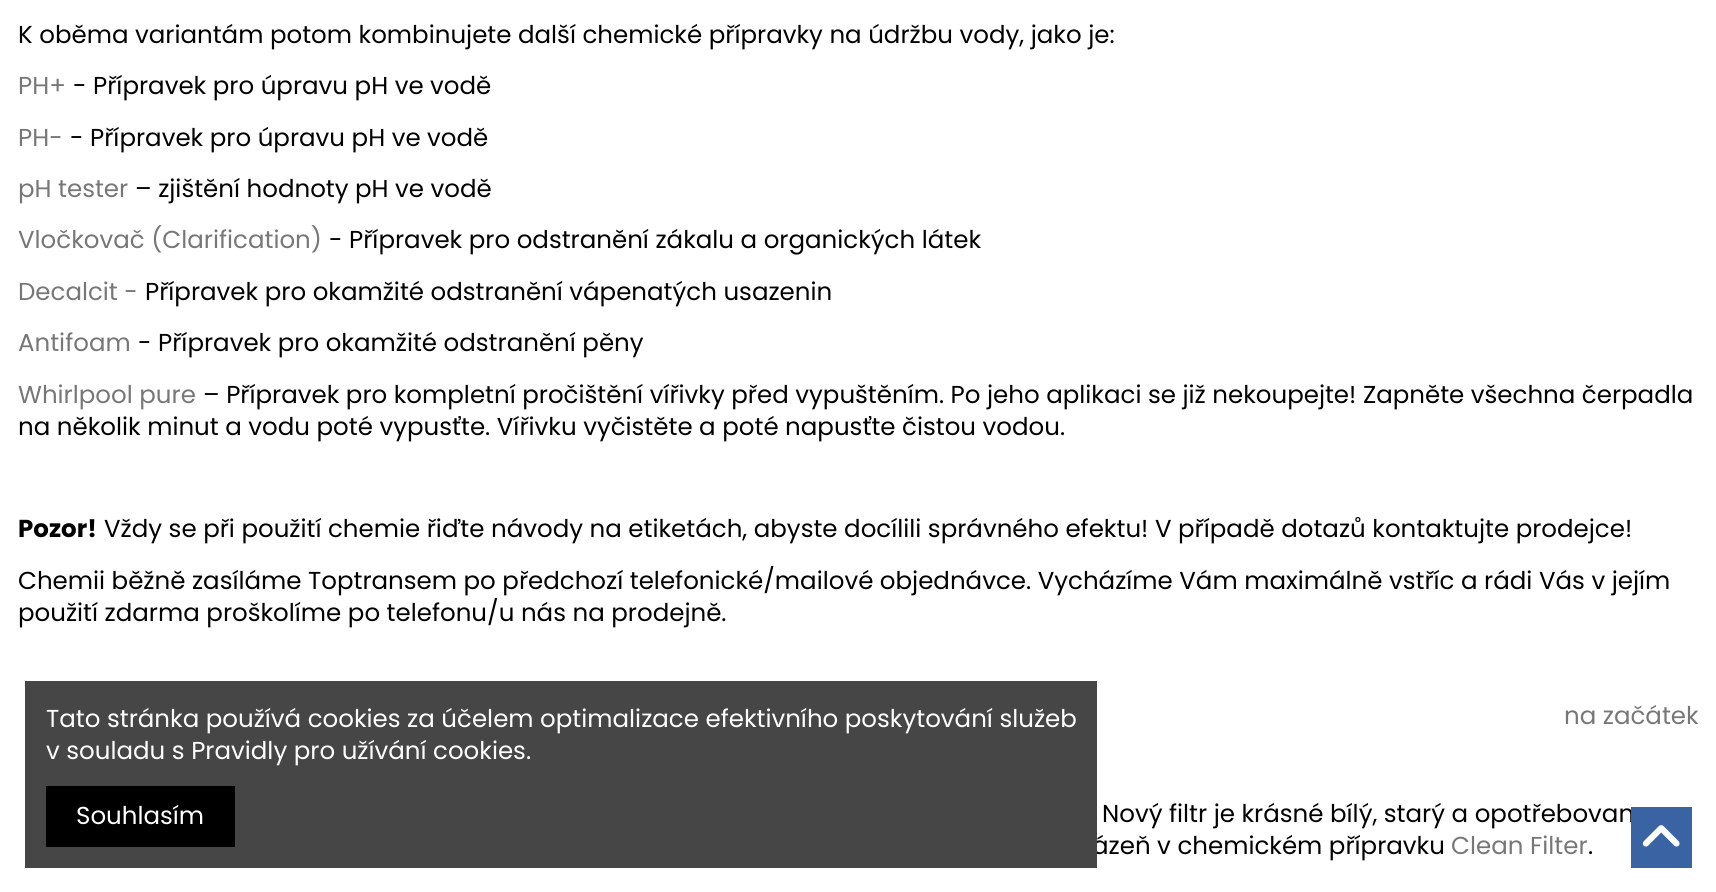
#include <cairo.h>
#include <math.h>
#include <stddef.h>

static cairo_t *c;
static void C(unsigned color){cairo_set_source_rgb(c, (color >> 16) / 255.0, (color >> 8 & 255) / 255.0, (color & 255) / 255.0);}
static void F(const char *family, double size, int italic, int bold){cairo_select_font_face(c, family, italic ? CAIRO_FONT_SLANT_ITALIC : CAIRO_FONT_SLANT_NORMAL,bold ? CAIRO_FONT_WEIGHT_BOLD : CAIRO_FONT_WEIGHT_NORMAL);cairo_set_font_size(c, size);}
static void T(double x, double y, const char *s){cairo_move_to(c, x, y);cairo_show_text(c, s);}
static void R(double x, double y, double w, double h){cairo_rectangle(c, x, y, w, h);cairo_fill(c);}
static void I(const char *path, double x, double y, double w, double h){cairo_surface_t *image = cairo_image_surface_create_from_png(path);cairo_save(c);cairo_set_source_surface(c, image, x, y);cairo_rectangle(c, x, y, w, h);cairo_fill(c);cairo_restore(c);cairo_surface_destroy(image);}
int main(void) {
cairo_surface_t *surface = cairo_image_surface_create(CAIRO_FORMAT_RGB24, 1716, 892);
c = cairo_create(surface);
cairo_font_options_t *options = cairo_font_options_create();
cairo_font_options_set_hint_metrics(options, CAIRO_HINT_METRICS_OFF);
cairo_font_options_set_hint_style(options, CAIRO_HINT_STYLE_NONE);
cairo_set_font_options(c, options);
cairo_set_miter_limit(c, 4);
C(0xffffff);
cairo_paint(c);
F("Poppins",24.5,0,0);
C(0x000000);
T(18,43,"K oběma variantám potom kombinujete další chemické přípravky na údržbu vody, jako je:");
C(0x777777);
T(18,94,"PH+");
C(0x000000);
T(73,94,"- Přípravek pro úpravu pH ve vodě");
C(0x777777);
T(18,146,"PH-");
C(0x000000);
T(70,146,"- Přípravek pro úpravu pH ve vodě");
C(0x777777);
T(18,197,"pH tester");
C(0x000000);
T(135,197,"– zjištění hodnoty pH ve vodě");
C(0x777777);
T(18,248,"Vločkovač (Clarification)");
C(0x000000);
T(329,248,"- Přípravek pro odstranění zákalu a organických látek");
C(0x777777);
T(18,300,"Decalcit -");
C(0x000000);
T(145,300,"Přípravek pro okamžité odstranění vápenatých usazenin");
C(0x777777);
T(18,351,"Antifoam");
C(0x000000);
T(138,351,"- Přípravek pro okamžité odstranění pěny");
C(0x777777);
T(18,403,"Whirlpool pure");
C(0x000000);
T(203,403,"– Přípravek pro kompletní pročištění vířivky před vypuštěním. Po jeho aplikaci se již nekoupejte! Zapněte všechna čerpadla");
T(18,435,"na několik minut a vodu poté vypusťte. Vířivku vyčistěte a poté napusťte čistou vodou.");
F("Poppins",24.5,0,1);
T(18,537,"Pozor!");
F("Poppins",24.5,0,0);
T(104,537,"Vždy se při použití chemie řiďte návody na etiketách, abyste docílili správného efektu! V případě dotazů kontaktujte prodejce!");
T(18,589,"Chemii běžně zasíláme Toptransem po předchozí telefonické/mailové objednávce. Vycházíme Vám maximálně vstříc a rádi Vás v jejím");
T(18,621,"použití zdarma proškolíme po telefonu/u nás na prodejně.");
C(0x777777);
T(1564,724,"na začátek");
C(0x000000);
T(1102,822,"Nový filtr je krásné bílý, starý a opotřebovan");
T(1092,854,"ázeň v chemickém přípravku");
C(0x777777);
T(1451,854,"Clean Filter");
C(0x000000);
T(1588,854,".");
C(0x464646);
R(25,681,1072,187);
C(0xffffff);
T(46,727,"Tato stránka používá cookies za účelem optimalizace efektivního poskytování služeb");
T(46,759,"v souladu s Pravidly pro užívání cookies.");
C(0x000000);
R(46,786,189,61);
C(0xffffff);
T(76,824,"Souhlasím");
C(0x3a63a3);
R(1631,807,61,61);
I("1.png",1642,825,38,22);
cairo_surface_write_to_png(surface, "o.png");
cairo_font_options_destroy(options);
cairo_destroy(c);
cairo_surface_destroy(surface);
return 0;
}
